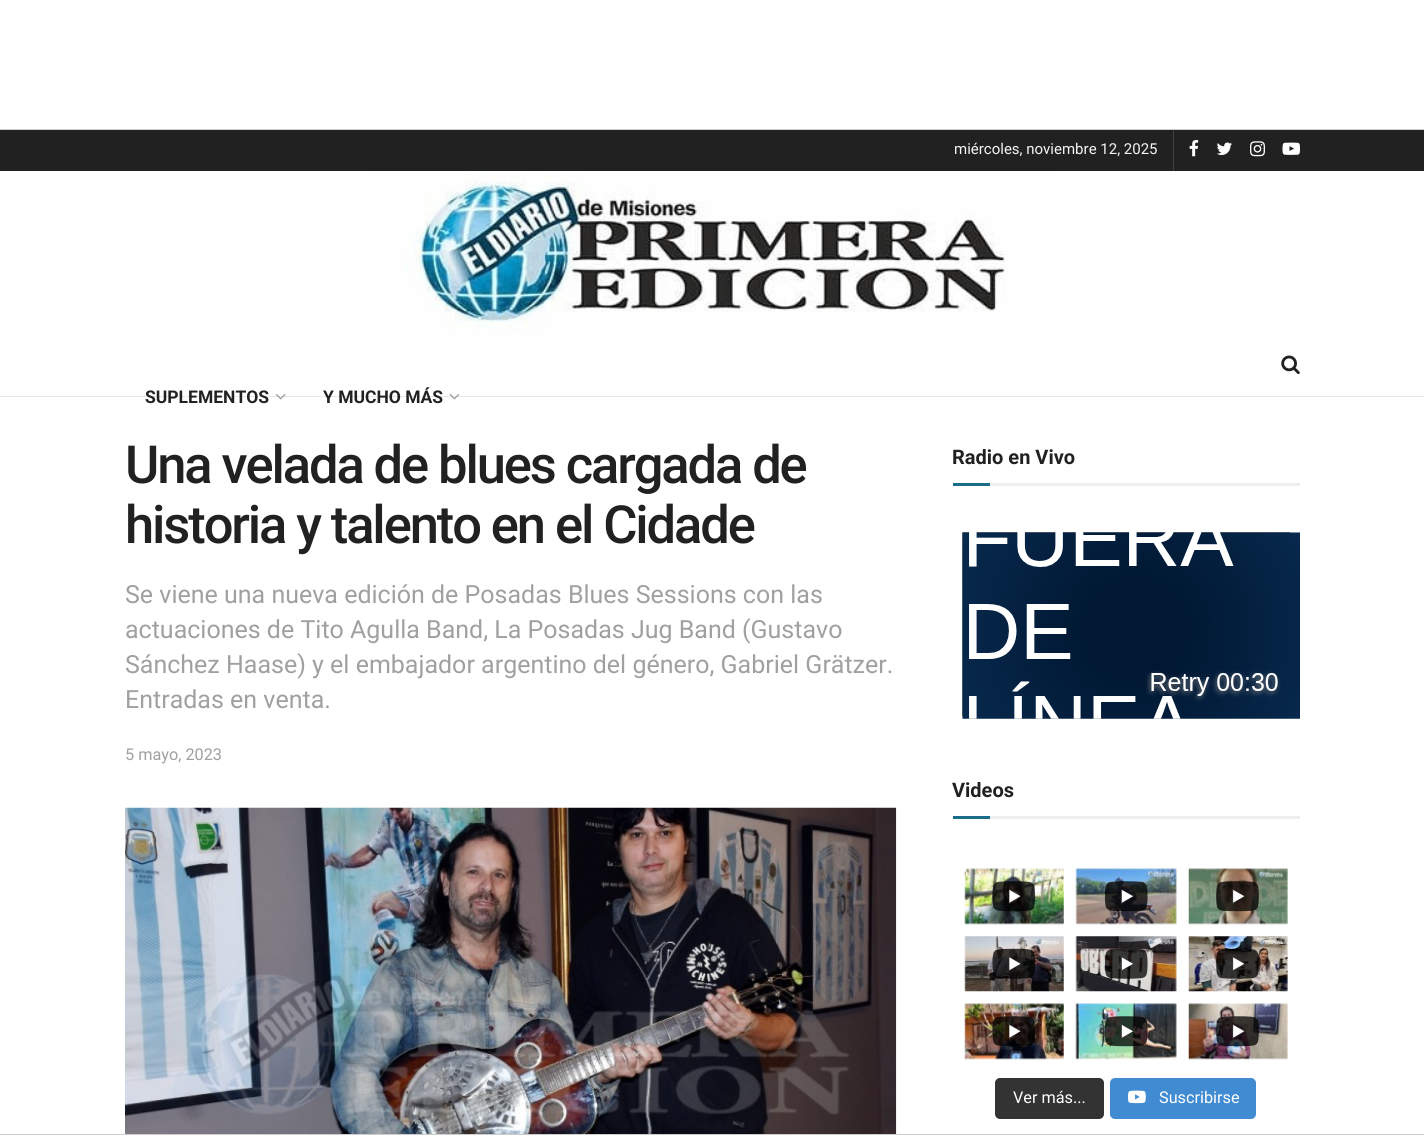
#include <cairo.h>
#include <math.h>
#include <stddef.h>

static cairo_t *c;
static void C(unsigned color){cairo_set_source_rgb(c, (color >> 16) / 255.0, (color >> 8 & 255) / 255.0, (color & 255) / 255.0);}
static void F(const char *family, double size, int italic, int bold){cairo_select_font_face(c, family, italic ? CAIRO_FONT_SLANT_ITALIC : CAIRO_FONT_SLANT_NORMAL,bold ? CAIRO_FONT_WEIGHT_BOLD : CAIRO_FONT_WEIGHT_NORMAL);cairo_set_font_size(c, size);}
static void T(double x, double y, const char *s){cairo_move_to(c, x, y);cairo_show_text(c, s);}
static void L(double x, double y, const char *s, double letter, double word){cairo_move_to(c, x, y);while (*s) {char ch[5] = {0};int n = 0;do ch[n++] = *s++; while ((*s & 0xC0) == 0x80);cairo_show_text(c, ch);cairo_rel_move_to(c, letter + word * (*ch == ' '), 0);}}
static void R(double x, double y, double w, double h){cairo_rectangle(c, x, y, w, h);cairo_fill(c);}
static void Q(double x, double y, double w, double h, double r){cairo_new_sub_path(c);cairo_arc(c, x + w - r, y + h - r, r, 0, M_PI / 2);cairo_arc(c, x + r, y + h - r, r, M_PI / 2, M_PI);cairo_arc(c, x + r, y + r, r, M_PI, 1.5 * M_PI);cairo_arc(c, x + w - r, y + r, r, 1.5 * M_PI, 2 * M_PI);cairo_close_path(c);}
static void I(const char *path, double x, double y, double w, double h){cairo_surface_t *image = cairo_image_surface_create_from_png(path);cairo_save(c);cairo_set_source_surface(c, image, x, y);cairo_rectangle(c, x, y, w, h);cairo_fill(c);cairo_restore(c);cairo_surface_destroy(image);}
int main(void) {
cairo_surface_t *surface = cairo_image_surface_create(CAIRO_FORMAT_RGB24, 1424, 1147);
c = cairo_create(surface);
cairo_font_options_t *options = cairo_font_options_create();
cairo_font_options_set_hint_metrics(options, CAIRO_HINT_METRICS_OFF);
cairo_font_options_set_hint_style(options, CAIRO_HINT_STYLE_NONE);
cairo_set_font_options(c, options);
cairo_set_miter_limit(c, 4);
C(0xffffff);
cairo_paint(c);
C(0x212121);
R(0,130,1424,41);
C(0x424242);
R(1173,126,1,45);
C(0xffffff);
R(1173,126,1,3);
C(0xcccccc);
R(0,129,1424,1);
F("Roboto",15,0,0);
C(0xf5f5f5);
T(954,154,"miércoles, noviembre 12, 2025");
I("1.png",1189,140,10,17);
I("2.png",1216,142,16,13);
I("3.png",1250,141,15,16);
I("4.png",1282,142,18,13);
I("5.png",365,171,696,164);
C(0xe8e8e8);
R(0,396,1424,1);
I("6.png",1281,355,19,20);
F("Roboto",17.5,0,1);
C(0x212121);
T(145,403,"SUPLEMENTOS");
I("7.png",275,394,11,6);
T(323,403,"Y MUCHO MÁS");
I("8.png",449,394,11,6);
F("Roboto Medium",52.5,0,0);
L(125,483,"Una velada de blues cargada de",-2.1,0);
L(125,543,"historia y talento en el Cidade",-2.1,0);
F("Roboto",25,0,0);
C(0xa0a0a0);
T(125,603,"Se viene una nueva edición de Posadas Blues Sessions con las");
T(125,638,"actuaciones de Tito Agulla Band, La Posadas Jug Band (Gustavo");
T(125,673,"Sánchez Haase) y el embajador argentino del género, Gabriel Grätzer.");
T(125,708,"Entradas en venta.");
F("Roboto",16.25,0,0);
T(125,760,"5 mayo, 2023");
I("10.png",322,807,146,1);
I("9.png",125,807,772,327);
C(0xeeeeee);
R(990,483,310,3);
F("Roboto",20,0,1);
C(0x212121);
T(952,464,"Radio en Vivo");
C(0x196d8b);
R(953,483,37,3);
I("11.png",962,532,338,187);
C(0xeeeeee);
R(990,816,310,3);
C(0x212121);
T(952,797,"Videos");
C(0x196d8b);
R(953,816,37,3);
I("12.png",964,868,100,57);
C(0xffffff);
cairo_new_path(c);
cairo_move_to(c,1009,904);
cairo_line_to(c,1009,889);
cairo_line_to(c,1021,896);
cairo_close_path(c);
cairo_fill(c);
I("13.png",992,881,44,31);
I("14.png",1075,868,102,57);
cairo_new_path(c);
cairo_move_to(c,1121,904);
cairo_line_to(c,1121,889);
cairo_line_to(c,1134,896);
cairo_close_path(c);
cairo_fill(c);
I("15.png",1104,881,44,31);
I("16.png",1188,868,100,57);
cairo_new_path(c);
cairo_move_to(c,1232.5,904);
cairo_line_to(c,1232.5,889);
cairo_line_to(c,1245,896);
cairo_close_path(c);
cairo_fill(c);
I("17.png",1216,881,43,31);
I("18.png",964,936,100,56);
cairo_new_path(c);
cairo_move_to(c,1009,971);
cairo_line_to(c,1009,956);
cairo_line_to(c,1021,964);
cairo_close_path(c);
cairo_fill(c);
I("19.png",992,948,44,31);
I("20.png",1075,936,102,56);
cairo_new_path(c);
cairo_move_to(c,1121,971);
cairo_line_to(c,1121,956);
cairo_line_to(c,1134,964);
cairo_close_path(c);
cairo_fill(c);
I("21.png",1104,948,44,31);
I("22.png",1188,936,100,56);
cairo_new_path(c);
cairo_move_to(c,1232.5,971);
cairo_line_to(c,1232.5,956);
cairo_line_to(c,1245,964);
cairo_close_path(c);
cairo_fill(c);
I("23.png",1216,948,43,31);
I("24.png",964,1003,100,57);
cairo_new_path(c);
cairo_move_to(c,1009,1039);
cairo_line_to(c,1009,1024);
cairo_line_to(c,1021,1031);
cairo_close_path(c);
cairo_fill(c);
I("25.png",992,1016,43,31);
I("26.png",1075,1003,102,57);
cairo_new_path(c);
cairo_move_to(c,1121,1039);
cairo_line_to(c,1121,1024);
cairo_line_to(c,1134,1031);
cairo_close_path(c);
cairo_fill(c);
I("27.png",1104,1016,44,31);
I("28.png",1188,1003,100,57);
cairo_new_path(c);
cairo_move_to(c,1232.5,1039);
cairo_line_to(c,1232.5,1024);
cairo_line_to(c,1245,1031);
cairo_close_path(c);
cairo_fill(c);
I("29.png",1216,1016,43,31);
C(0x333333);
Q(995,1078,109,41,5);
cairo_fill(c);
F("Roboto",16.25,0,0);
C(0xffffff);
T(1013,1103,"Ver más...");
C(0x408bd1);
Q(1110,1078,146,41,5);
cairo_fill(c);
I("30.png",1128,1090,18,14);
C(0xffffff);
T(1159,1103,"Suscribirse");
C(0xcccccc);
R(0,1134,1424,1);
cairo_surface_write_to_png(surface, "o.png");
cairo_font_options_destroy(options);
cairo_destroy(c);
cairo_surface_destroy(surface);
return 0;
}
